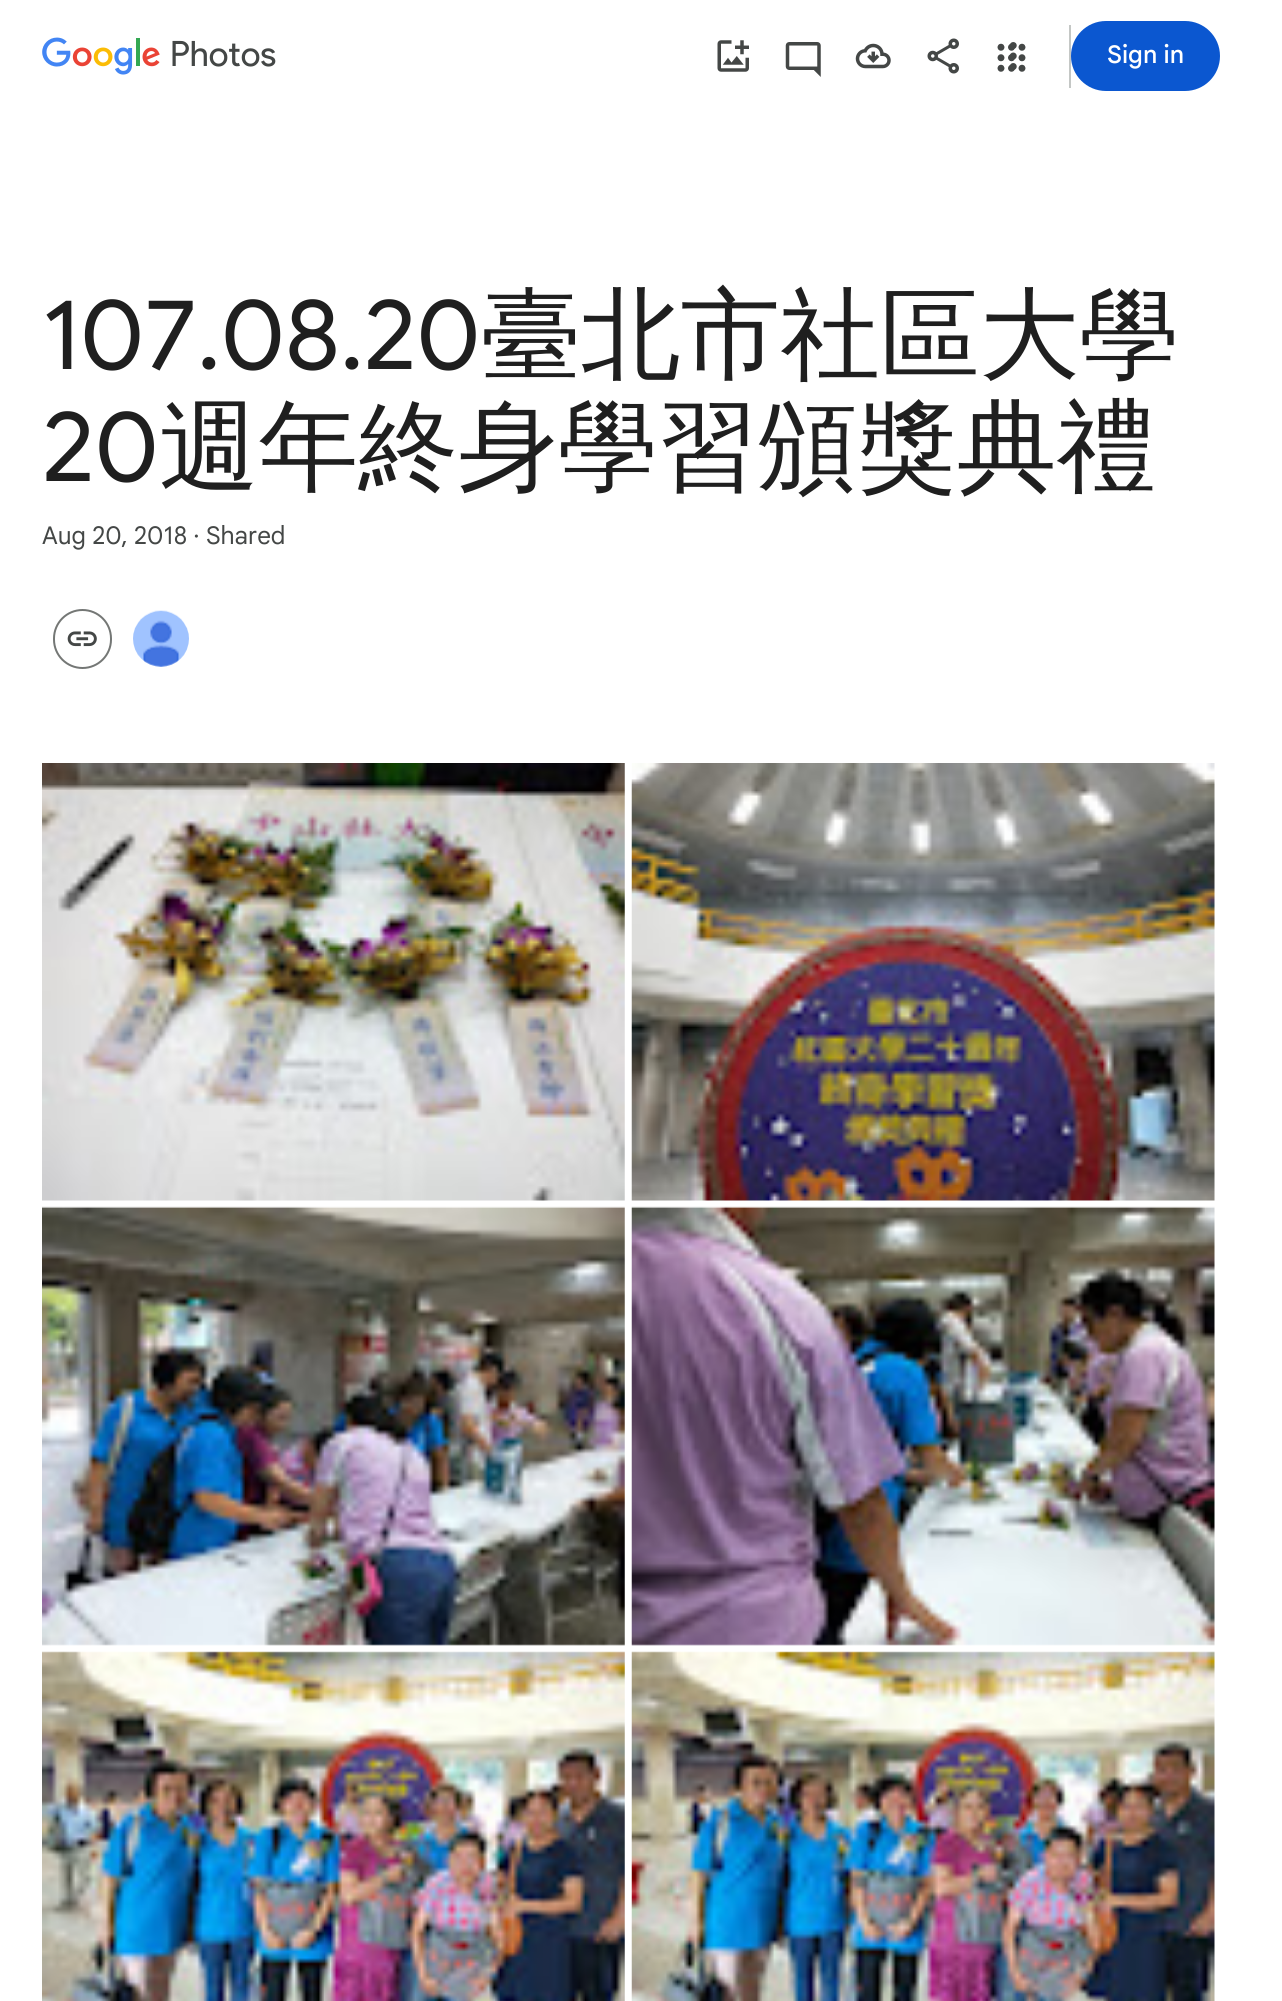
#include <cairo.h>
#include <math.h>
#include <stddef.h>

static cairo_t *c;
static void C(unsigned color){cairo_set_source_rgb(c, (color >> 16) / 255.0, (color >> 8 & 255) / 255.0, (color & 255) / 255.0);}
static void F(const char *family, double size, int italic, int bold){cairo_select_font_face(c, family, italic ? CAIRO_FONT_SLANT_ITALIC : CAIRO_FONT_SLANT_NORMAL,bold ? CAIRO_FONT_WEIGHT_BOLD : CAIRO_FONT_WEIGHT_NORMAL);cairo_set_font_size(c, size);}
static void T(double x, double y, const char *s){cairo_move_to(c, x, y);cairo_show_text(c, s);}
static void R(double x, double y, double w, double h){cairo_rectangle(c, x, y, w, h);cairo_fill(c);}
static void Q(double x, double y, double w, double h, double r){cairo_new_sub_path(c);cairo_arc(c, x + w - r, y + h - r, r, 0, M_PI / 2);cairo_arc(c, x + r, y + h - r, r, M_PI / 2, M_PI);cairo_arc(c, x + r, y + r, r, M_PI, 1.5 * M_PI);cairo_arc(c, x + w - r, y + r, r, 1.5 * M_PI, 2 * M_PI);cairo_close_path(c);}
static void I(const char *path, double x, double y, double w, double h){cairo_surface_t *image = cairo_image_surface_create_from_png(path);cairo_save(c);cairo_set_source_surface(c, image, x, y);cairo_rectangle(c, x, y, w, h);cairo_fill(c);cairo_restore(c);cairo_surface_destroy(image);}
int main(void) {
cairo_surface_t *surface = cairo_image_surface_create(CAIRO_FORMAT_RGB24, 1282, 2001);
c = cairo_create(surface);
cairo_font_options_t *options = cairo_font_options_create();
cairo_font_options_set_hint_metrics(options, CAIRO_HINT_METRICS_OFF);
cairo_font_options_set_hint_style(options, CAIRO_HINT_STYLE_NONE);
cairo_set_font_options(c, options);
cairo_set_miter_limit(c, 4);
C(0xffffff);
cairo_paint(c);
I("1.png",42,37,118,38);
F("Product Sans",35,0,0);
C(0x444746);
T(170,66,"Photos");
I("2.png",717,40,32,32);
I("3.png",785,42,36,35);
I("4.png",855,43,36,26);
I("5.png",927,38,32,36);
I("6.png",1009,42,8,28);
C(0xc4c7c5);
R(1069,25,2,63);
F("Google Sans",99.75,0,0);
C(0x1f1f1f);
T(42,369,"107.08.20");
F("WenQuanYi Zen Hei Medium",99.75,0,0);
T(481,369,"臺北市社區大學");
F("Google Sans",99.75,0,0);
T(42,481,"20");
F("WenQuanYi Zen Hei Medium",99.75,0,0);
T(159,481,"週年終身學習頒獎典禮");
F("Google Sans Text",24.5,0,0);
C(0x444746);
T(42,544,"Aug 20, 2018 · Shared");
Q(54,610,57,58,28.5);
C(0x747775);
cairo_stroke(c);
I("7.png",67,631,30,16);
I("8.png",133,610,56,57);
I("9.png",42,763,583,438);
I("10.png",631,763,584,438);
I("11.png",42,1206,583,440);
I("12.png",631,1206,584,440);
I("13.png",42,1651,583,350);
I("14.png",631,1651,584,350);
I("15.png",997,43,29,29);
C(0x0b57d0);
Q(1071,21,149,70,35);
cairo_fill(c);
F("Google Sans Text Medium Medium",24.5,0,0);
C(0xffffff);
T(1107,63,"Sign in");
cairo_surface_write_to_png(surface, "o.png");
cairo_font_options_destroy(options);
cairo_destroy(c);
cairo_surface_destroy(surface);
return 0;
}
